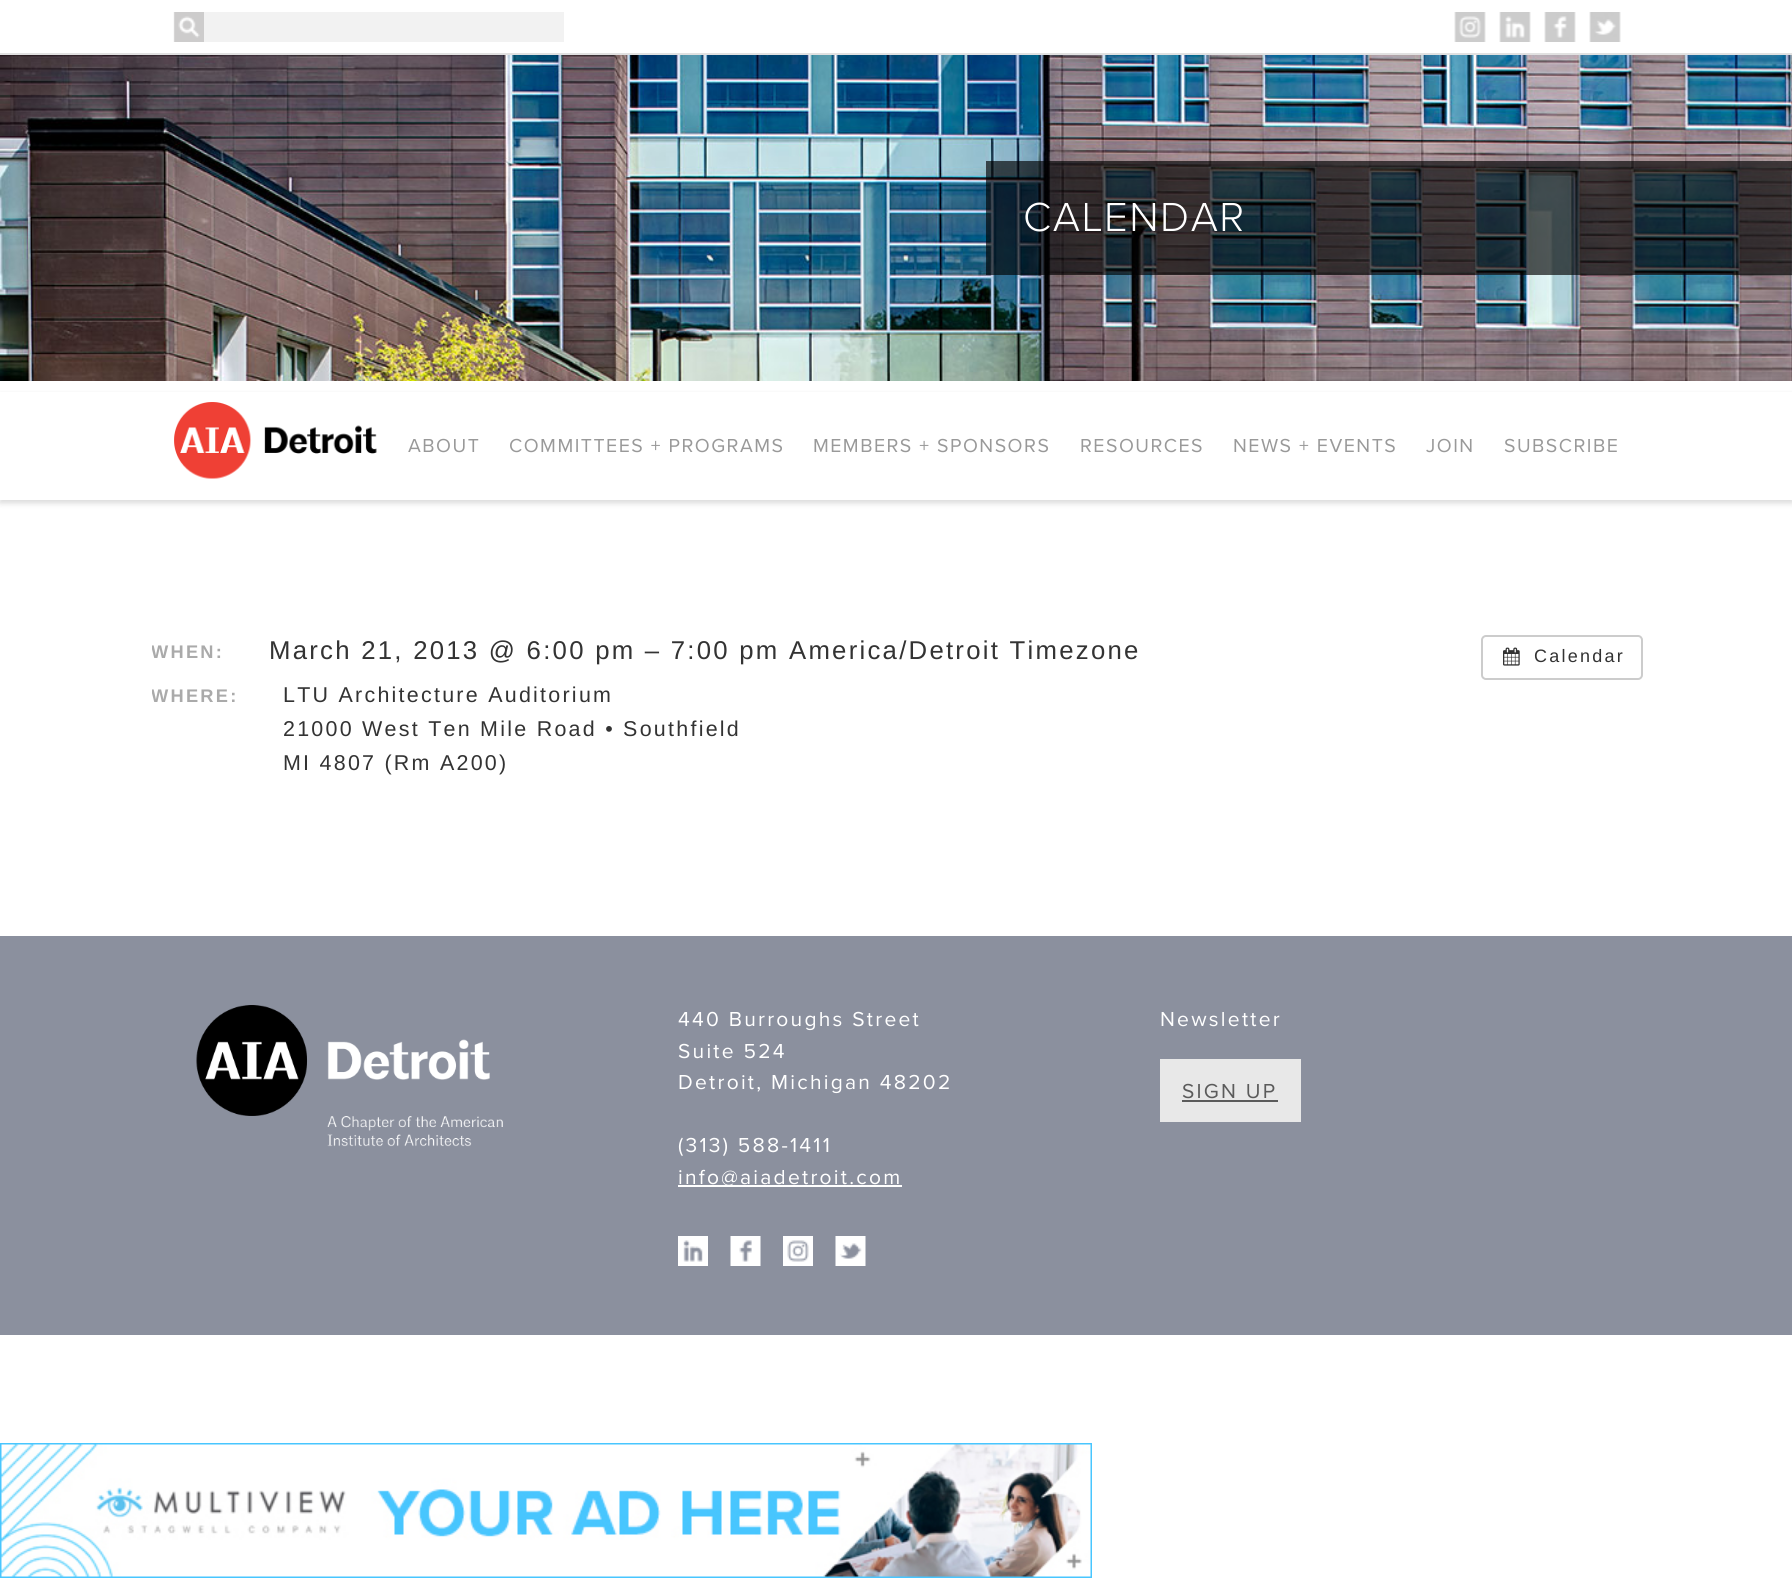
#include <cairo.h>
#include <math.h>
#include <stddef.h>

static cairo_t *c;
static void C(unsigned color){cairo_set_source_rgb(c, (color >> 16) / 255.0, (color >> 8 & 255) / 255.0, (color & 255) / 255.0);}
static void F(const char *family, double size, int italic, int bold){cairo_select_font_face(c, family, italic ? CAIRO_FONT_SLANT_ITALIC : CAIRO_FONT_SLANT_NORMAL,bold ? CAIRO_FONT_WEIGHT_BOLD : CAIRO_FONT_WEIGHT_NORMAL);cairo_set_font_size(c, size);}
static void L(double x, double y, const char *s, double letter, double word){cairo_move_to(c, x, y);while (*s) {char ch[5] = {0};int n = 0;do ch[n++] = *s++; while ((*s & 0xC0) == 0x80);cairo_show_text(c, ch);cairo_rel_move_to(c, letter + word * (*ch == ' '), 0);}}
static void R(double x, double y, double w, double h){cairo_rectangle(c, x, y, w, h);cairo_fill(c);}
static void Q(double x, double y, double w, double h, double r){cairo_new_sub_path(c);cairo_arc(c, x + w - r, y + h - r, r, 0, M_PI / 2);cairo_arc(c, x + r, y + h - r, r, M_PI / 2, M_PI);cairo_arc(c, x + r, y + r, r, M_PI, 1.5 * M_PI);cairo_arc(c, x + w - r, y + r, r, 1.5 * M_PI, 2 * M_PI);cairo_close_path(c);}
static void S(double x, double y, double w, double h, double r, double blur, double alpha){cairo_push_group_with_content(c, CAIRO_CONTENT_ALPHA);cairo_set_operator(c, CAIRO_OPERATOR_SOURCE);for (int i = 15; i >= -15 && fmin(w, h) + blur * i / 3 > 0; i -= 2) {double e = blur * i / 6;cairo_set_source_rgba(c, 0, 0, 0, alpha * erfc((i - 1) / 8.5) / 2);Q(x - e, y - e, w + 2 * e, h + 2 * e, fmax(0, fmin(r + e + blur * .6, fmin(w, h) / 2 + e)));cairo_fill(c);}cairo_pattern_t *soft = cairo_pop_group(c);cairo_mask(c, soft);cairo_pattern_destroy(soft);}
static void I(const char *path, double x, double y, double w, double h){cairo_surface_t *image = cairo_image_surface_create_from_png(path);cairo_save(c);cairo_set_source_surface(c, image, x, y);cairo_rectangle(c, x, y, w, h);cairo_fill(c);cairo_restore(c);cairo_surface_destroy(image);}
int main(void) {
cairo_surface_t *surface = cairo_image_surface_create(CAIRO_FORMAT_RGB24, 1792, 1578);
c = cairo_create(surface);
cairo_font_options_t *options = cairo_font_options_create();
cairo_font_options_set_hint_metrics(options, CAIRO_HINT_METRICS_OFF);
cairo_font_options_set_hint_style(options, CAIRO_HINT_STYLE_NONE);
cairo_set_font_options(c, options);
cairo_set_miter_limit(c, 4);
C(0xffffff);
cairo_paint(c);
C(0xe1e1e1);
R(0,53,1792,2);
I("1.png",173,12,31,30);
C(0xf2f2f2);
R(204,12,360,30);
I("2.png",1454,12,32,30);
I("3.png",1499,12,32,30);
I("4.png",1544,12,32,30);
I("5.png",1589,12,32,30);
I("6.png",0,55,1792,326);
cairo_set_source_rgba(c,0,0,0,0.65);
R(986,161,806,114);
F("Proxima Nova Light",42,0,0);
C(0xffffff);
L(1023,231,"CALENDAR",1.5,0);
C(0x000000);
S(0,395,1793,108,0,3,.15);
C(0xffffff);
R(0,392,1792,108);
I("7.png",174,402,203,77);
F("Proxima Nova",19.5,0,0);
C(0x999999);
L(408,452,"ABOUT",1.5,0);
L(509,452,"COMMITTEES + PROGRAMS",1.5,0);
L(813,452,"MEMBERS + SPONSORS",1.5,0);
L(1080,452,"RESOURCES",1.5,0);
L(1233,452,"NEWS + EVENTS",1.5,0);
L(1426,452,"JOIN",1.5,0);
L(1504,452,"SUBSCRIBE",1.5,0);
cairo_save(c);
cairo_rectangle(c,152,635,1314,151);
cairo_clip(c);
F("Liberation Sans",18.25,0,1);
C(0xaaaaaa);
L(151,658,"WHEN:",2.25,0);
cairo_restore(c);
F("Liberation Sans",25.75,0,0);
C(0x333333);
L(269,659,"March 21, 2013 @ 6:00 pm – 7:00 pm America/Detroit Timezone",2.25,0);
cairo_save(c);
cairo_rectangle(c,152,635,1314,151);
cairo_clip(c);
F("Liberation Sans",18.25,0,1);
C(0xaaaaaa);
L(151,702,"WHERE:",2.25,0);
cairo_restore(c);
F("Liberation Sans",21.45,0,0);
L(283,702,"LTU Architecture Auditorium",2.25,0);
L(283,736,"21000 West Ten Mile Road • Southfield",2.25,0);
L(283,770,"MI 4807 (Rm A200)",2.25,0);
Q(1482,636,160,43,4);
C(0xcccccc);
cairo_stroke(c);
I("8.png",1503,647,17,19);
F("Liberation Sans",18,0,0);
C(0x333333);
L(1534,662,"Calendar",2.25,0);
C(0x8b909e);
R(0,936,1792,399);
I("9.png",196,1005,307,142);
F("Proxima Nova",21,0,0);
C(0xffffff);
L(678,1026,"440 Burroughs Street",2.25,0);
L(678,1058,"Suite 524",2.25,0);
L(678,1089,"Detroit, Michigan 48202",2.25,0);
L(678,1152,"(313) 588-1411",2.25,0);
R(678,1185,224,2);
L(678,1184,"info@aiadetroit.com",2.25,0);
I("10.png",678,1236,30,30);
I("11.png",730,1236,31,30);
I("12.png",783,1236,30,30);
I("13.png",835,1236,31,30);
L(1160,1026,"Newsletter",2.25,0);
C(0xe8e8e8);
R(1160,1059,141,63);
C(0x5b5b5b);
L(1182,1098,"SIGN UP",2.25,0);
R(1182,1100,96,2);
I("14.png",0,1443,1092,135);
cairo_surface_write_to_png(surface, "o.png");
cairo_font_options_destroy(options);
cairo_destroy(c);
cairo_surface_destroy(surface);
return 0;
}
